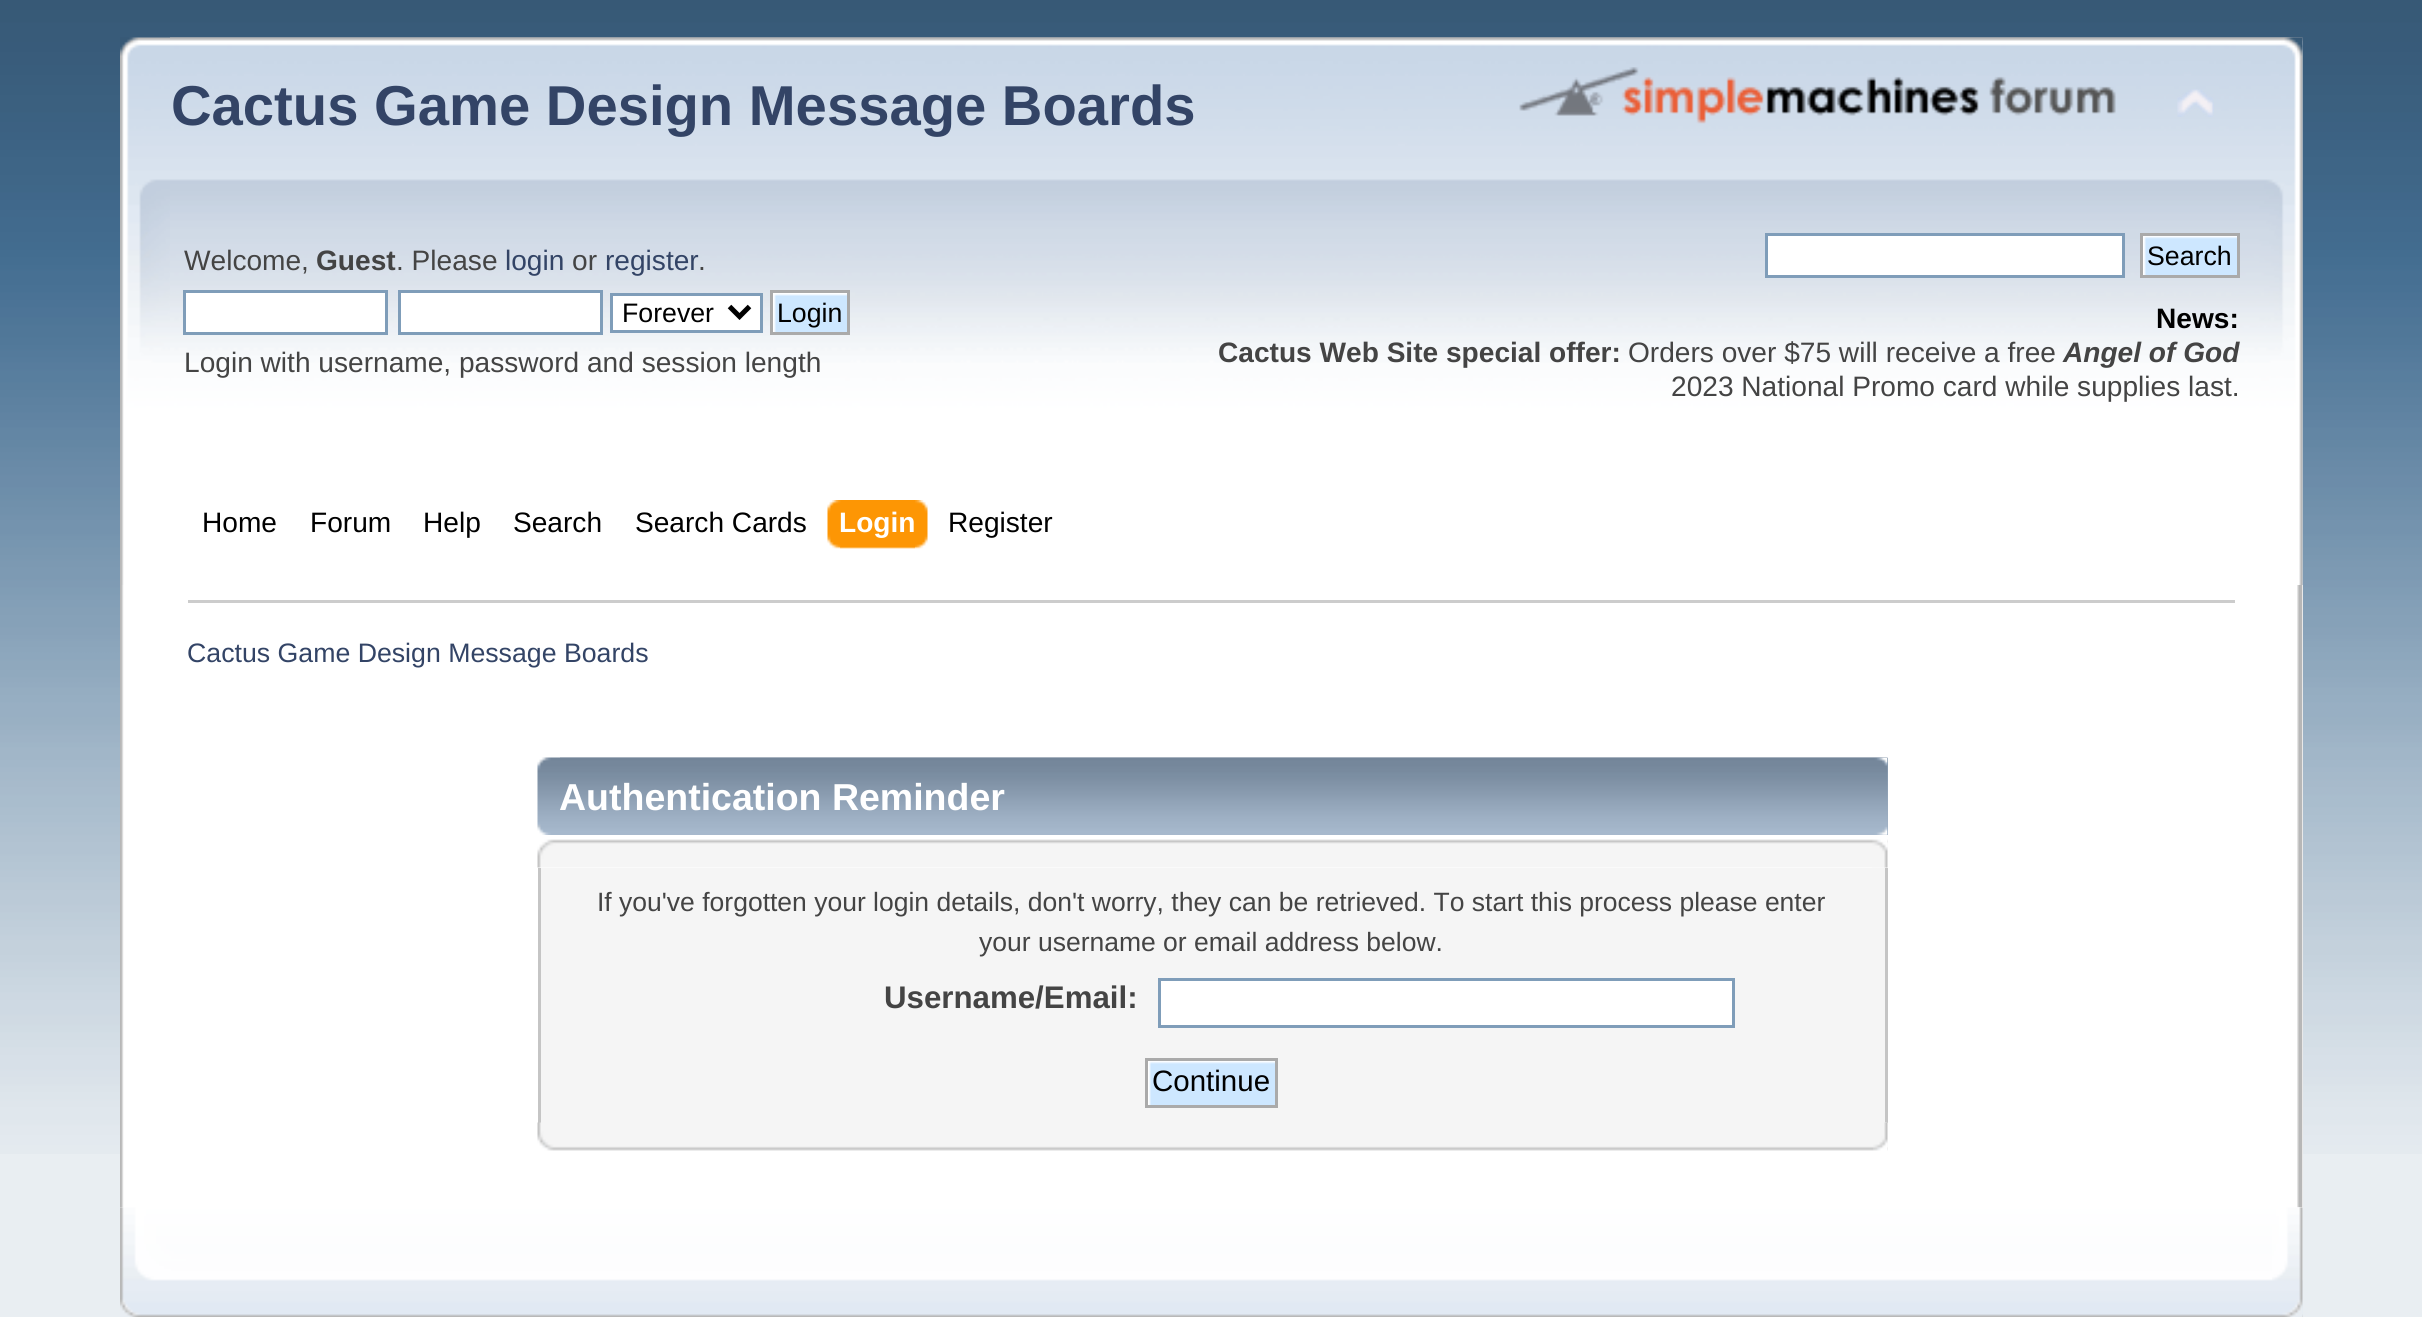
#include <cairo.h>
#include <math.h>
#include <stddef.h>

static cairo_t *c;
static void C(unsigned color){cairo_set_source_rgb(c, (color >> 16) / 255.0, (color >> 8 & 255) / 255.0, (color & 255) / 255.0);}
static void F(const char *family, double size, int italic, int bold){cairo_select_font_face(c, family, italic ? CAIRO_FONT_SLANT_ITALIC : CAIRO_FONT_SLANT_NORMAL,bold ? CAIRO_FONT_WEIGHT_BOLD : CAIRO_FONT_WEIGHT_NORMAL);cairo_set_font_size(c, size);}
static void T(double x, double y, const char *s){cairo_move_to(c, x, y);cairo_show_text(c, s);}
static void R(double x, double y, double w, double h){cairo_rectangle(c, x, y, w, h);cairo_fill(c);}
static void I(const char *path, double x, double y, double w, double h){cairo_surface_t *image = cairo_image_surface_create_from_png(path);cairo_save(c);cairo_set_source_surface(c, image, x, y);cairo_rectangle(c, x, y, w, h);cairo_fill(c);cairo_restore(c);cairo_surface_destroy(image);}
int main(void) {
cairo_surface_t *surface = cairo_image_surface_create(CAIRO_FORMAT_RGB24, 2422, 1317);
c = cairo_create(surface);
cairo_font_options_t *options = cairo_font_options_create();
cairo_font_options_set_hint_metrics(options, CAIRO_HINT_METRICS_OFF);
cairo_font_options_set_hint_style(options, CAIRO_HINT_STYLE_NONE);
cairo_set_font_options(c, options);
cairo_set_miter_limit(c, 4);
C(0xe9eef2);
cairo_paint(c);
I("1.png",0,0,2422,1154);
I("2.png",120,37,2183,548);
I("3.png",170,37,2133,548);
F("Liberation Sans",56.2,0,1);
C(0x334466);
T(171,125,"Cactus Game Design Message Boards");
I("4.png",1519,67,597,57);
I("5.png",2177,89,37,28);
F("Liberation Sans",28.1,0,0);
C(0x444444);
T(184,270,"Welcome,");
F("Liberation Sans",28.1,0,1);
T(316,270,"Guest");
F("Liberation Sans",28.1,0,0);
T(396,270,". Please");
C(0x334466);
T(505,270,"login");
C(0x444444);
T(572,270,"or");
C(0x334466);
T(605,270,"register");
C(0x444444);
T(698,270,".");
C(0xffffff);
cairo_rectangle(c,184.5,291.5,202,42);
cairo_fill_preserve(c);
C(0x7f9db9);
cairo_set_line_width(c,3);
cairo_stroke(c);
C(0xffffff);
cairo_rectangle(c,399.5,291.5,202,42);
cairo_fill_preserve(c);
C(0x7f9db9);
cairo_stroke(c);
C(0xffffff);
cairo_rectangle(c,611.5,294.5,150,37);
cairo_fill_preserve(c);
C(0x7f9db9);
cairo_stroke(c);
cairo_new_path(c);
cairo_move_to(c,729.5,306.5);
cairo_line_to(c,739.5,316.5);
cairo_line_to(c,749.5,306.5);
C(0x000000);
cairo_set_line_width(c,5);
cairo_stroke(c);
F("Liberation Sans",26.7,0,0);
T(622,322,"Forever");
I("6.png",773,293,74,39);
cairo_rectangle(c,771.5,291.5,77,42);
C(0xaaaaaa);
cairo_set_line_width(c,3);
cairo_stroke(c);
C(0x000000);
T(777,322,"Login");
F("Liberation Sans",28.1,0,0);
C(0x444444);
T(184,372,"Login with username, password and session length");
C(0xffffff);
cairo_rectangle(c,1766.5,234.5,357,42);
cairo_fill_preserve(c);
C(0x7f9db9);
cairo_stroke(c);
I("7.png",2143,236,94,39);
cairo_rectangle(c,2141.5,234.5,97,42);
C(0xaaaaaa);
cairo_stroke(c);
F("Liberation Sans",26.7,0,0);
C(0x000000);
T(2147,265,"Search");
F("Liberation Sans",28.1,0,1);
T(2156,328,"News:");
C(0x444444);
T(1218,362,"Cactus Web Site special offer:");
F("Liberation Sans",28.1,0,0);
T(1628,362,"Orders over $75 will receive a free");
F("Liberation Sans",28.1,1,1);
T(2063,362,"Angel of God");
F("Liberation Sans",28.1,0,0);
T(1671,396,"2023 National Promo card while supplies last.");
C(0x000000);
T(202,532,"Home");
T(310,532,"Forum");
T(423,532,"Help");
T(513,532,"Search");
T(635,532,"Search Cards");
I("8.png",840,500,88,49);
I("9.png",827,500,88,49);
F("Liberation Sans",28.1,0,1);
C(0xffffff);
T(839,532,"Login");
F("Liberation Sans",28.1,0,0);
C(0x000000);
T(948,532,"Register");
C(0xffffff);
R(120,585,2183,623);
I("10.png",120,585,4,623);
I("11.png",2297,585,6,623);
C(0xcccccc);
R(188,600,2047,3);
F("Liberation Sans",26.7,0,0);
C(0x334466);
T(187,662,"Cactus Game Design Message Boards");
C(0x99abbf);
R(1887,758,1,77);
I("12.png",537,757,1351,78);
I("13.png",560,757,1328,78);
F("Liberation Sans",37.5,0,1);
C(0xffffff);
T(559,810,"Authentication Reminder");
I("14.png",537,839,1351,29);
I("15.png",1872,839,16,29);
C(0xf5f5f5);
R(541,868,1344,255);
C(0xc5c5c5);
R(1885,868,3,255);
R(538,868,3,255);
F("Liberation Sans",26.5,0,0);
C(0x444444);
T(597,911,"If you've forgotten your login details, don't worry, they can be retrieved. To start this process please enter");
T(979,951,"your username or email address below.");
F("Liberation Sans",31.25,0,1);
T(884,1008,"Username/Email:");
C(0xffffff);
cairo_rectangle(c,1159.5,979.5,574,47);
cairo_fill_preserve(c);
C(0x7f9db9);
cairo_stroke(c);
I("16.png",1148,1061,127,44);
cairo_rectangle(c,1146.5,1059.5,130,47);
C(0xaaaaaa);
cairo_stroke(c);
F("Liberation Sans",29.5,0,0);
C(0x000000);
T(1152,1091,"Continue");
I("17.png",537,1122,1351,29);
I("18.png",1873,1122,15,29);
I("19.png",120,1207,2183,110);
I("20.png",2272,1207,31,110);
cairo_surface_write_to_png(surface, "o.png");
cairo_font_options_destroy(options);
cairo_destroy(c);
cairo_surface_destroy(surface);
return 0;
}
